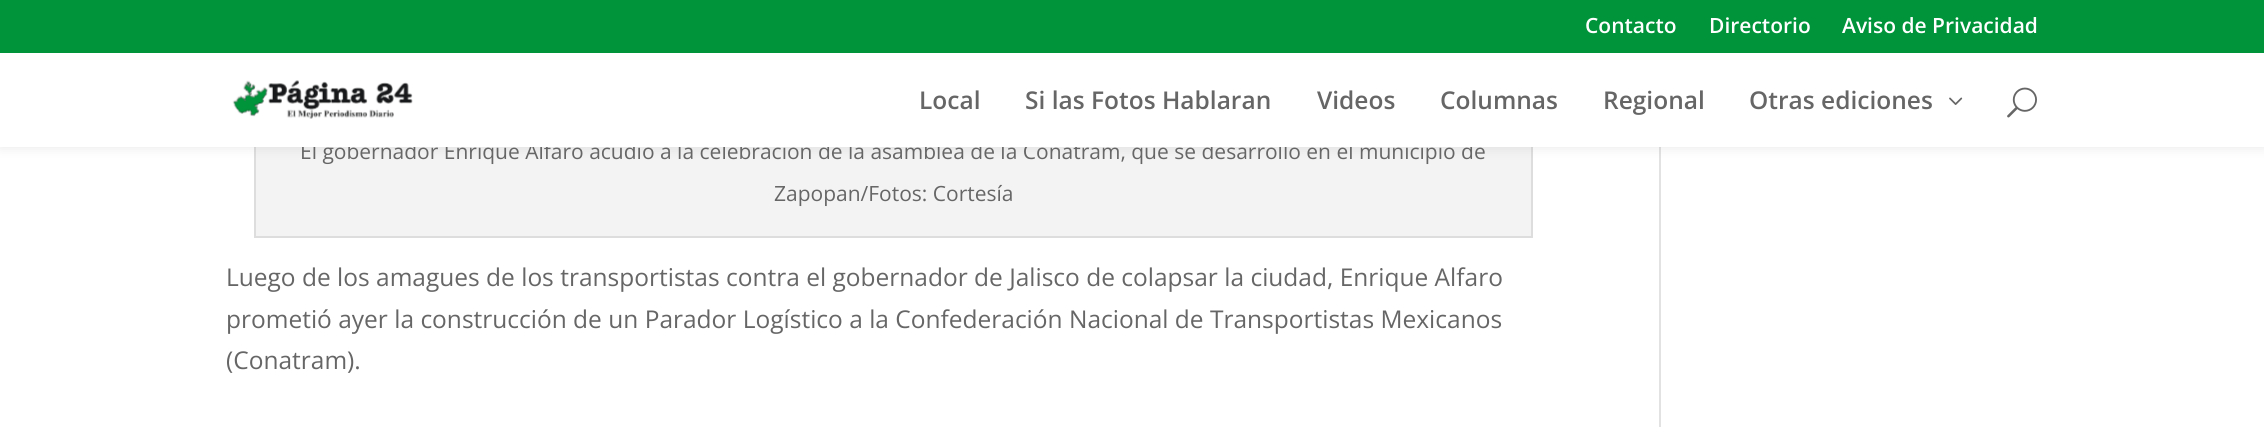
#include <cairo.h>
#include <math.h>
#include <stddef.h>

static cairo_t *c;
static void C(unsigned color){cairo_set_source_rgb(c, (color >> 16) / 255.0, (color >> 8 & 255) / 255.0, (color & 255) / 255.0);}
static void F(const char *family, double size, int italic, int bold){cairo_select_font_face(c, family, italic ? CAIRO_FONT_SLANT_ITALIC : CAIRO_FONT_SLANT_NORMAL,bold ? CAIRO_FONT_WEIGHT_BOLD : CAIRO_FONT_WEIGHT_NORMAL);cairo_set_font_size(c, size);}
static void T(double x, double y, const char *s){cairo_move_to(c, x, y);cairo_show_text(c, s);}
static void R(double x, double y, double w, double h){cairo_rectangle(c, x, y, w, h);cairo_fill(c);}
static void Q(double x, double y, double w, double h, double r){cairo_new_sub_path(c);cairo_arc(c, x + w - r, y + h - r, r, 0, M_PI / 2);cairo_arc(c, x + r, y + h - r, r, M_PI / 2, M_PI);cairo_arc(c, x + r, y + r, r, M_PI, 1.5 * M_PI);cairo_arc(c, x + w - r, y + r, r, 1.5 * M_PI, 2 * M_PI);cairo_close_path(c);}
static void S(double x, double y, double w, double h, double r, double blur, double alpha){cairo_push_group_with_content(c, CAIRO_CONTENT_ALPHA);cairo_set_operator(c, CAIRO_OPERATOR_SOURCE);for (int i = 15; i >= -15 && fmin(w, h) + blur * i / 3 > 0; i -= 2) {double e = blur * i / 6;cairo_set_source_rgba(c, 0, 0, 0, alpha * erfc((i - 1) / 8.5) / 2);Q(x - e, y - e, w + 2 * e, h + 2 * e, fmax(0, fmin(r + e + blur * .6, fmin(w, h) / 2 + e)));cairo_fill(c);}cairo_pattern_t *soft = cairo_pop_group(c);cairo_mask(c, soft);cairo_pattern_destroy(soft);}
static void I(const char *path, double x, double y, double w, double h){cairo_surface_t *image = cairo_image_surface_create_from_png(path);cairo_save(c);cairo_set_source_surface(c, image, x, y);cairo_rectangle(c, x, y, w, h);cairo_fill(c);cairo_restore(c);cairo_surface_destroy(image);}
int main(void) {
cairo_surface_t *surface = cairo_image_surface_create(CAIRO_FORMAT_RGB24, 2264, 427);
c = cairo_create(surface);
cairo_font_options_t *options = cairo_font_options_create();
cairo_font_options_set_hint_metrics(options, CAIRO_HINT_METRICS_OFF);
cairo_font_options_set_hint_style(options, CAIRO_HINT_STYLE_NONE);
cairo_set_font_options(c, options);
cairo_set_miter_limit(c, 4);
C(0xffffff);
cairo_paint(c);
C(0xf3f3f3);
R(256,147,1275,89);
cairo_rectangle(c,255,-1,1277,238);
C(0xdddddd);
cairo_stroke(c);
C(0xe2e2e2);
R(1659,147,2,280);
C(0x000000);
S(0,53,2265,94,0,6,.1);
C(0x00943a);
R(0,0,2264,53);
F("Open Sans SemiBold",21,0,0);
C(0xffffff);
T(1585,33,"Contacto");
T(1709,33,"Directorio");
T(1842,33,"Aviso de Privacidad");
F("Open Sans",21,0,0);
C(0x666666);
T(300,159,"El gobernador Enrique Alfaro acudió a la celebración de la asamblea de la Conatram, que se desarrolló en el municipio de");
C(0xffffff);
R(0,53,2264,94);
I("1.png",232,80,181,39);
F("Open Sans SemiBold",24.5,0,0);
C(0x666666);
T(919,109,"Local");
T(1025,109,"Si las Fotos Hablaran");
T(1317,109,"Videos");
T(1440,109,"Columnas");
T(1603,109,"Regional");
T(1749,109,"Otras ediciones");
I("2.png",1949,97,14,8);
I("3.png",2007,87,30,31);
F("Open Sans",21,0,0);
T(774,201,"Zapopan/Fotos: Cortesía");
F("Open Sans",24.5,0,0);
T(226,286,"Luego de los amagues de los transportistas contra el gobernador de Jalisco de colapsar la ciudad, Enrique Alfaro");
T(226,328,"prometió ayer la construcción de un Parador Logístico a la Confederación Nacional de Transportistas Mexicanos");
T(226,369,"(Conatram).");
cairo_surface_write_to_png(surface, "o.png");
cairo_font_options_destroy(options);
cairo_destroy(c);
cairo_surface_destroy(surface);
return 0;
}
